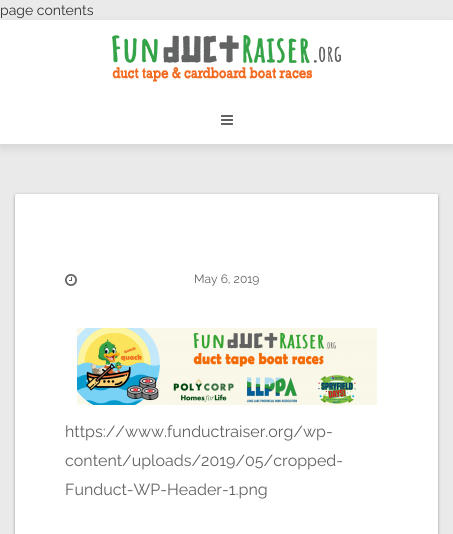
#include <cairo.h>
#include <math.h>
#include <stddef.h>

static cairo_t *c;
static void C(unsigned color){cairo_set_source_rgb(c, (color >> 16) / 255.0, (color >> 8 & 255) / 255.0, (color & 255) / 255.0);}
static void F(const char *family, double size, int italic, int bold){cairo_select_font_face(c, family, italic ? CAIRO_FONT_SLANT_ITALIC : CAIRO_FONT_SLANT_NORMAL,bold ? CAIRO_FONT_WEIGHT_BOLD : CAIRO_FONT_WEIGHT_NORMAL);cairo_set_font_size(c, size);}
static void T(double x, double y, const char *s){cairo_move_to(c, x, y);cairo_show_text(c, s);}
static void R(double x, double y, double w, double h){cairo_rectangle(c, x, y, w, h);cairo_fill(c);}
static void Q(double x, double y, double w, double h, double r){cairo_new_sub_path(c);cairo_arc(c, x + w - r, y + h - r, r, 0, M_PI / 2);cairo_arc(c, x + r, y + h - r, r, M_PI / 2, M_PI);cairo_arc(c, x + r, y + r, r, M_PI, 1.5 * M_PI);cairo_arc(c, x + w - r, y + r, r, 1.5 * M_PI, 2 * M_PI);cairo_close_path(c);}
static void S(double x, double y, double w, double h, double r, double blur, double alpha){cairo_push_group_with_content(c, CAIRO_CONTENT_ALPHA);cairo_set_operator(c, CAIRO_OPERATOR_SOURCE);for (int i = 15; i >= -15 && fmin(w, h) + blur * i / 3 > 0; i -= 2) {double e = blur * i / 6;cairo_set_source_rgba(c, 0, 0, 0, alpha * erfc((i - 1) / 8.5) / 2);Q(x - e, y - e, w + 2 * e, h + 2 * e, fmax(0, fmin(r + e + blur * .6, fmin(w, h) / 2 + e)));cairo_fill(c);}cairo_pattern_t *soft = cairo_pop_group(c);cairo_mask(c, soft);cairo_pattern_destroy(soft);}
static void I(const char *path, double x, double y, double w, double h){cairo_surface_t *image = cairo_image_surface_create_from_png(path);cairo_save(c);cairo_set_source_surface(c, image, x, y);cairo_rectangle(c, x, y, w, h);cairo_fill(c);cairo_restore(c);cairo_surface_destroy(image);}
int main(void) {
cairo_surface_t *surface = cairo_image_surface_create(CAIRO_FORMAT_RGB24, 453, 534);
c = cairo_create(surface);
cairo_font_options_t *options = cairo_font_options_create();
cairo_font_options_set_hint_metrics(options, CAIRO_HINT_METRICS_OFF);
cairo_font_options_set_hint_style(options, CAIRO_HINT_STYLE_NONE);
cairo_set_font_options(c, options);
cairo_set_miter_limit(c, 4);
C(0xeaeaea);
cairo_paint(c);
F("Raleway",14,0,0);
C(0x333333);
T(0,15,"page contents");
C(0x000000);
S(0,24,453,124,0,5,.1);
C(0xffffff);
R(0,20,453,124);
I("1.png",112,35,229,47);
I("2.png",221,115,12,10);
C(0x221919);
S(15,195,423,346,2,1.5,.4);
C(0xffffff);
Q(15,194,423,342,2);
cairo_fill(c);
I("3.png",65,274,12,12);
F("Raleway",12,0,0);
C(0x616161);
T(194,283,"May 6, 2019");
I("4.png",77,328,300,77);
F("Raleway",16,0,0);
T(65,437,"https://www.funductraiser.org/wp-");
T(65,466,"content/uploads/2019/05/cropped-");
T(65,495,"Funduct-WP-Header-1.png");
cairo_surface_write_to_png(surface, "o.png");
cairo_font_options_destroy(options);
cairo_destroy(c);
cairo_surface_destroy(surface);
return 0;
}
